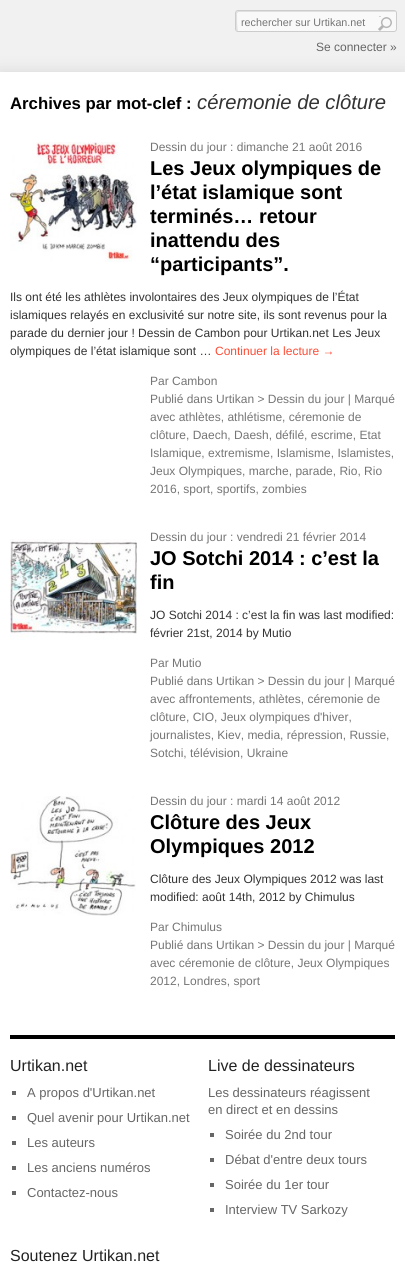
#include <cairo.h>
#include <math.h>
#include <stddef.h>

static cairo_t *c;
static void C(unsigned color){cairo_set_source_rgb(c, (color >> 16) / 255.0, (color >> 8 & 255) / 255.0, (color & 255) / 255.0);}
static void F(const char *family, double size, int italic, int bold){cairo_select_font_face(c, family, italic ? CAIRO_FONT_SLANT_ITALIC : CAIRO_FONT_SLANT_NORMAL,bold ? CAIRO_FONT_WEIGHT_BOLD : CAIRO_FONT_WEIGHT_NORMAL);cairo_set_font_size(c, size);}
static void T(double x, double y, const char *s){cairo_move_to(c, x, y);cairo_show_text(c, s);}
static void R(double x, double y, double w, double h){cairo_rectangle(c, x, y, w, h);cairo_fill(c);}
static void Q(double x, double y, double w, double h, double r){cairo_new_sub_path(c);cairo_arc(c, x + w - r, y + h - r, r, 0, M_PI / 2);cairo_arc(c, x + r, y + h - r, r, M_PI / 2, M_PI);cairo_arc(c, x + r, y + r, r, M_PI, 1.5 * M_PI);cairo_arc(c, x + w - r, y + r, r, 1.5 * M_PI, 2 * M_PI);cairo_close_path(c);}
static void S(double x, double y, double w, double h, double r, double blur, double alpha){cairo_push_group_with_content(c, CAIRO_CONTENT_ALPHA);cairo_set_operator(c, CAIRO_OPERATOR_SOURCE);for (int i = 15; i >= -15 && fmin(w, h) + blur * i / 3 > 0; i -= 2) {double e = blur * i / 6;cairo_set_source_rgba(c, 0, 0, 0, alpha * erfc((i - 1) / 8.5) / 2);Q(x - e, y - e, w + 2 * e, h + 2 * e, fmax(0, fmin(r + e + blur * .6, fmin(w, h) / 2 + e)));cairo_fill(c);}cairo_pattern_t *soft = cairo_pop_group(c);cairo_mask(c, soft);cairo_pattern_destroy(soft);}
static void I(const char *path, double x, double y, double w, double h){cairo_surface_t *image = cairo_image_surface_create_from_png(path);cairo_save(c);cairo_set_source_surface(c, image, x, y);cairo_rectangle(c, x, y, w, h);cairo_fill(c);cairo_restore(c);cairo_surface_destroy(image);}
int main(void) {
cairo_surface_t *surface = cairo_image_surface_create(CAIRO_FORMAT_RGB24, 405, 1274);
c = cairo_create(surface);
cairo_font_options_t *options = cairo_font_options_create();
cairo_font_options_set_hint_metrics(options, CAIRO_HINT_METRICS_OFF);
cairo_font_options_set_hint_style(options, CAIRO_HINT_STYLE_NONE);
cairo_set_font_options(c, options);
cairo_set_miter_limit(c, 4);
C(0xf1f1f1);
cairo_paint(c);
C(0xf9f9f9);
Q(235,10,162,22,3);
cairo_fill(c);
C(0xe0e0e0);
cairo_new_path(c);
cairo_move_to(c,239,12);
cairo_line_to(c,395,12);
cairo_line_to(c,396,12);
cairo_curve_to(c,396,12,395,11,394,11);
cairo_line_to(c,238,11);
cairo_curve_to(c,237,11,236,12,236,13);
cairo_line_to(c,236,29);
cairo_curve_to(c,236,30,237,31,238,31);
cairo_curve_to(c,237,29,237,16,237,14);
cairo_curve_to(c,237,13,238,12,239,12);
cairo_close_path(c);
cairo_fill(c);
Q(235.5,10.5,161,21,2.5);
C(0xcccccc);
cairo_set_line_width(c,1);
cairo_stroke(c);
F("Liberation Sans",10.75,0,0);
C(0x757575);
T(241,26,"rechercher sur Urtikan.net");
I("1.png",378,16,14,15);
F("Liberation Sans",12,0,0);
C(0x666666);
T(316,51,"Se connecter »");
C(0xc8c8c8);
S(0,76,405,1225,0,9,1);
C(0xffffff);
R(0,72,405,1202);
F("Liberation Sans",16.75,0,1);
C(0x000000);
T(10,109,"Archives par mot-clef :");
F("Liberation Sans",20.25,1,0);
C(0x333333);
T(197,109,"céremonie de clôture");
I("2.png",10,142,127,120);
F("Liberation Sans",12,0,0);
C(0x757575);
T(150,151,"Dessin du jour : dimanche 21 août 2016");
F("Liberation Sans",20,0,1);
C(0x000000);
T(150,175,"Les Jeux olympiques de");
T(150,199,"l’état islamique sont");
T(150,223,"terminés… retour");
T(150,247,"inattendu des");
T(150,271,"“participants”.");
F("Liberation Sans",12,0,0);
C(0x333333);
T(10,301,"Ils ont été les athlètes involontaires des Jeux olympiques de l’État");
T(10,319,"islamiques relayés en exclusivité sur notre site, ils sont revenus pour la");
T(10,337,"parade du dernier jour ! Dessin de Cambon pour Urtikan.net Les Jeux");
T(10,355,"olympiques de l’état islamique sont …");
C(0xff4b33);
T(215,355,"Continuer la lecture →");
C(0x757575);
T(150,385,"Par Cambon");
T(150,403,"Publié dans Urtikan > Dessin du jour | Marqué");
T(150,421,"avec athlètes, athlétisme, céremonie de");
T(150,439,"clôture, Daech, Daesh, défilé, escrime, Etat");
T(150,457,"Islamique, extremisme, Islamisme, Islamistes,");
T(150,475,"Jeux Olympiques, marche, parade, Rio, Rio");
T(150,493,"2016, sport, sportifs, zombies");
I("3.png",10,539,127,101);
T(150,541,"Dessin du jour : vendredi 21 février 2014");
F("Liberation Sans",20,0,1);
C(0x000000);
T(150,565,"JO Sotchi 2014 : c’est la");
T(150,589,"fin");
F("Liberation Sans",12,0,0);
C(0x333333);
T(150,619,"JO Sotchi 2014 : c’est la fin was last modified:");
T(150,637,"février 21st, 2014 by Mutio");
C(0x757575);
T(150,667,"Par Mutio");
T(150,685,"Publié dans Urtikan > Dessin du jour | Marqué");
T(150,703,"avec affrontements, athlètes, céremonie de");
T(150,721,"clôture, CIO, Jeux olympiques d'hiver,");
T(150,739,"journalistes, Kiev, media, répression, Russie,");
T(150,757,"Sotchi, télévision, Ukraine");
I("4.png",10,796,126,120);
T(150,805,"Dessin du jour : mardi 14 août 2012");
F("Liberation Sans",20,0,1);
C(0x000000);
T(150,829,"Clôture des Jeux");
T(150,853,"Olympiques 2012");
F("Liberation Sans",12,0,0);
C(0x333333);
T(150,883,"Clôture des Jeux Olympiques 2012 was last");
T(150,901,"modified: août 14th, 2012 by Chimulus");
C(0x757575);
T(150,931,"Par Chimulus");
T(150,949,"Publié dans Urtikan > Dessin du jour | Marqué");
T(150,967,"avec céremonie de clôture, Jeux Olympiques");
T(150,985,"2012, Londres, sport");
C(0x000000);
R(10,1035,385,4);
F("Liberation Sans",16,0,0);
C(0x222222);
T(10,1071,"Urtikan.net");
C(0x666666);
R(12,1091,4,4);
F("Liberation Sans",13,0,0);
T(27,1097,"A propos d'Urtikan.net");
R(12,1116,4,4);
T(27,1122,"Quel avenir pour Urtikan.net");
R(12,1141,4,4);
T(27,1147,"Les auteurs");
R(12,1166,4,4);
T(27,1172,"Les anciens numéros");
R(12,1191,4,4);
T(27,1197,"Contactez-nous");
F("Liberation Sans",16,0,0);
C(0x222222);
T(208,1071,"Live de dessinateurs");
F("Liberation Sans",13,0,0);
C(0x666666);
T(208,1097,"Les dessinateurs réagissent");
T(208,1114,"en direct et en dessins");
R(210,1133,4,4);
T(225,1139,"Soirée du 2nd tour");
R(210,1158,4,4);
T(225,1164,"Débat d'entre deux tours");
R(210,1183,4,4);
T(225,1189,"Soirée du 1er tour");
R(210,1208,4,4);
T(225,1214,"Interview TV Sarkozy");
F("Liberation Sans",16,0,0);
C(0x222222);
T(10,1261,"Soutenez Urtikan.net");
cairo_surface_write_to_png(surface, "o.png");
cairo_font_options_destroy(options);
cairo_destroy(c);
cairo_surface_destroy(surface);
return 0;
}
